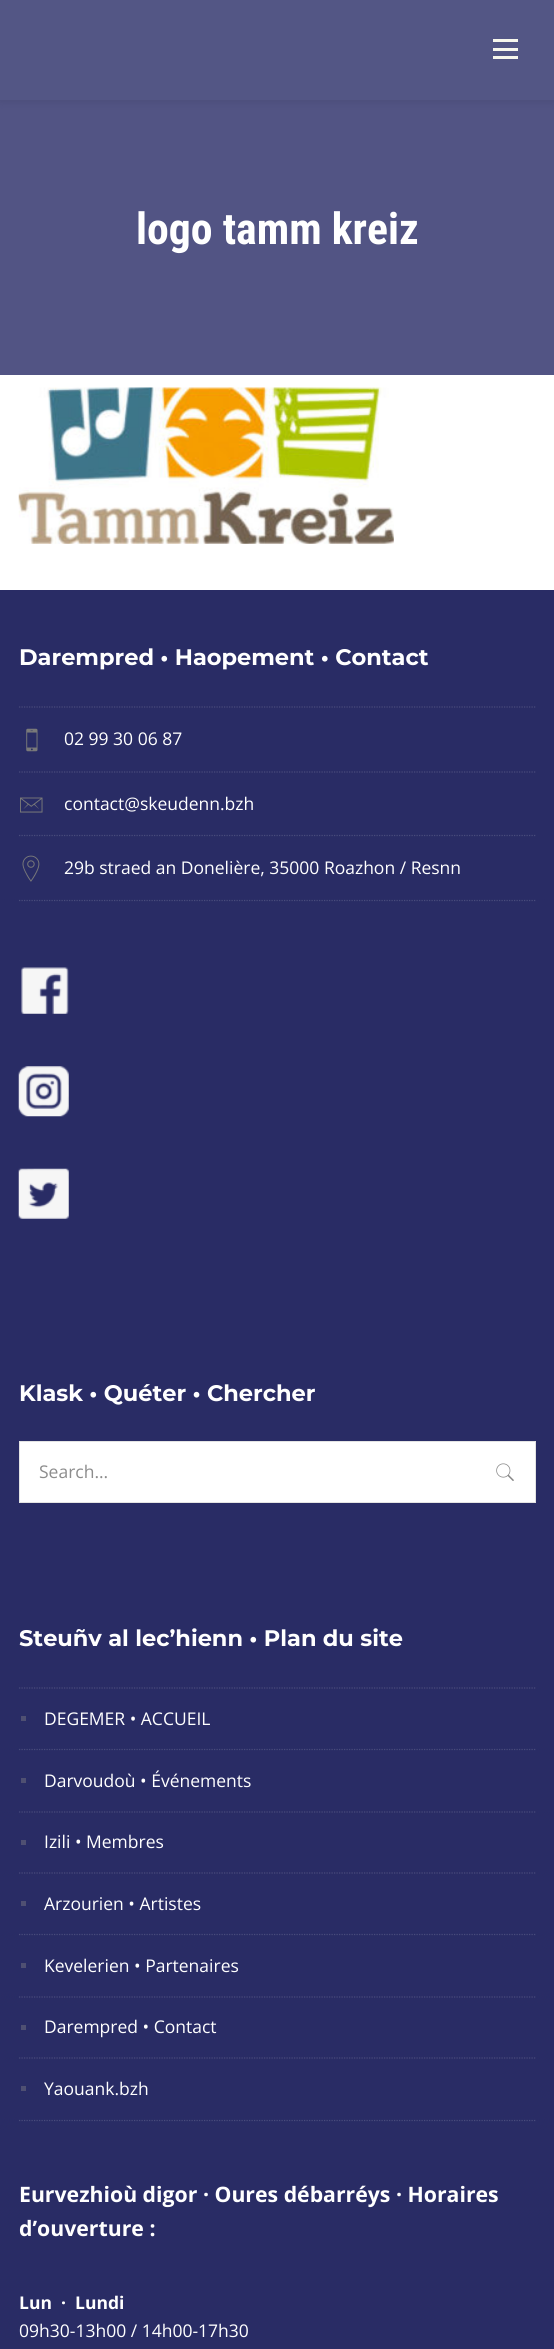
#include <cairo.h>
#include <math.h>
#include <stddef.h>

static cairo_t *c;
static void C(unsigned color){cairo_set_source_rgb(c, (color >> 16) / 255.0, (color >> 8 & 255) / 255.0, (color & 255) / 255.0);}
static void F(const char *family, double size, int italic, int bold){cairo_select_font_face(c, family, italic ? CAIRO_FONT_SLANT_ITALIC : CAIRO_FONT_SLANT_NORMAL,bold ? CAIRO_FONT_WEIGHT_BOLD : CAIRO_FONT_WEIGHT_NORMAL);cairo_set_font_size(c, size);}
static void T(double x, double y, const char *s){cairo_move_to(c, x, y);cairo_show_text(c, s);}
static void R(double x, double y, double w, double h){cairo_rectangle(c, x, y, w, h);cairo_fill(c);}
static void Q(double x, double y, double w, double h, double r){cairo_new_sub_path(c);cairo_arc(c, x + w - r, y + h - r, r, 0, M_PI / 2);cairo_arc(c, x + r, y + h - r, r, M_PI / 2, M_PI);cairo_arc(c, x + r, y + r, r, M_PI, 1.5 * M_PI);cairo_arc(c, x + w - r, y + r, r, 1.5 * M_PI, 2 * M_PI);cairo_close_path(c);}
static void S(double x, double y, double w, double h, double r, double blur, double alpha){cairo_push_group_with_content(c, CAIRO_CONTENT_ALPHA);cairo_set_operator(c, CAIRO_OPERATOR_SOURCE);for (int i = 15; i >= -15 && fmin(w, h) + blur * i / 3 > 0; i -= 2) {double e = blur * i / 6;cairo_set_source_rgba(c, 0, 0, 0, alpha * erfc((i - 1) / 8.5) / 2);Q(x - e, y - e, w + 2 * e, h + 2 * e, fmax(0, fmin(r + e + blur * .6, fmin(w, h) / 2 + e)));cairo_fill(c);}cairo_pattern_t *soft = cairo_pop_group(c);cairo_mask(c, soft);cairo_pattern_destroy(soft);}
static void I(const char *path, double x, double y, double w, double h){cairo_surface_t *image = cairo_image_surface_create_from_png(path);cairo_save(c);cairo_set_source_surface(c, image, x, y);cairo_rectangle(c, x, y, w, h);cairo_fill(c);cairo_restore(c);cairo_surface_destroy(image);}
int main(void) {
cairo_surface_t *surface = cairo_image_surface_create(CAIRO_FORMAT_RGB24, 554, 2349);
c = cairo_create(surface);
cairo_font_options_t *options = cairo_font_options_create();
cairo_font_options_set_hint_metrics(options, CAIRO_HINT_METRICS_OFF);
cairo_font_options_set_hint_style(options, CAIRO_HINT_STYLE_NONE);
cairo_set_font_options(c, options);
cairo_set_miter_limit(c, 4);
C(0xffffff);
cairo_paint(c);
C(0x525484);
R(0,100,554,275);
C(0x000000);
S(0,1,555,100,0,5,.1);
C(0x535685);
R(0,0,554,100);
C(0xf7f7ed);
R(493,48,25,3);
R(493,39,25,3);
R(493,56,25,3);
F("Roboto Condensed",43.75,0,1);
C(0xffffff);
T(136,244,"logo tamm kreiz");
I("1.png",18,387,376,157);
C(0x292c65);
R(0,590,554,1759);
F("Montserrat",22.5,0,1);
C(0xffffff);
T(19,665,"Darempred • Haopement • Contact");
cairo_new_path(c);
cairo_move_to(c,19,707);
cairo_line_to(c,536,707);
C(0x494c7c);
cairo_set_line_width(c,1.2);
cairo_set_dash(c,(double[]){1.25,1.25},2,0);
cairo_stroke(c);
cairo_new_path(c);
cairo_move_to(c,19,772);
cairo_line_to(c,536,772);
cairo_stroke(c);
I("2.png",26,728,12,24);
F("Open Sans",17.5,0,0);
C(0xffffff);
T(64,745,"02 99 30 06 87");
cairo_new_path(c);
cairo_move_to(c,19,835.5);
cairo_line_to(c,536,835.5);
C(0x494c7c);
cairo_stroke(c);
I("3.png",20,797,23,16);
C(0xffffff);
T(64,810,"contact@skeudenn.bzh");
cairo_new_path(c);
cairo_move_to(c,19,900.5);
cairo_line_to(c,536,900.5);
C(0x494c7c);
cairo_stroke(c);
I("4.png",22,855,18,27);
C(0xffffff);
T(64,874,"29b straed an Donelière, 35000 Roazhon / Resnn");
I("5.png",21,967,48,47);
I("6.png",18,1066,51,51);
I("7.png",18,1168,51,51);
F("Montserrat",22.5,0,1);
T(19,1401,"Klask • Quéter • Chercher");
cairo_rectangle(c,19.5,1441.5,516,61);
cairo_fill_preserve(c);
C(0xe3e3e3);
cairo_set_line_width(c,1);
cairo_set_dash(c,NULL,0,0);
cairo_stroke(c);
F("Open Sans",17.5,0,0);
C(0x8c8c8c);
T(39,1478,"Search...");
I("8.png",496,1463,18,18);
F("Montserrat",22.5,0,1);
C(0xffffff);
T(19,1646,"Steuñv al lec’hienn • Plan du site");
cairo_new_path(c);
cairo_move_to(c,19,1688);
cairo_line_to(c,536,1688);
C(0x494c7c);
cairo_set_line_width(c,1.2);
cairo_set_dash(c,(double[]){1.25,1.25},2,0);
cairo_stroke(c);
cairo_new_path(c);
cairo_move_to(c,19,1749.5);
cairo_line_to(c,536,1749.5);
cairo_stroke(c);
C(0x4f5072);
R(21,1716,5,5);
F("Open Sans",17.5,0,0);
C(0xffffff);
T(44,1725,"DEGEMER • ACCUEIL");
cairo_new_path(c);
cairo_move_to(c,19,1812);
cairo_line_to(c,536,1812);
C(0x494c7c);
cairo_stroke(c);
C(0x4f5072);
R(21,1778,5,5);
C(0xffffff);
T(44,1787,"Darvoudoù • Événements");
cairo_new_path(c);
cairo_move_to(c,19,1873);
cairo_line_to(c,536,1873);
C(0x494c7c);
cairo_stroke(c);
C(0x4f5072);
R(21,1840,5,5);
C(0xffffff);
T(44,1848,"Izili • Membres");
cairo_new_path(c);
cairo_move_to(c,19,1934.5);
cairo_line_to(c,536,1934.5);
C(0x494c7c);
cairo_stroke(c);
C(0x4f5072);
R(21,1901,5,5);
C(0xffffff);
T(44,1910,"Arzourien • Artistes");
cairo_new_path(c);
cairo_move_to(c,19,1997);
cairo_line_to(c,536,1997);
C(0x494c7c);
cairo_stroke(c);
C(0x4f5072);
R(21,1963,5,5);
C(0xffffff);
T(44,1972,"Kevelerien • Partenaires");
cairo_new_path(c);
cairo_move_to(c,19,2058);
cairo_line_to(c,536,2058);
C(0x494c7c);
cairo_stroke(c);
C(0x4f5072);
R(21,2025,5,5);
C(0xffffff);
T(44,2033,"Darempred • Contact");
cairo_new_path(c);
cairo_move_to(c,19,2120.5);
cairo_line_to(c,536,2120.5);
C(0x494c7c);
cairo_stroke(c);
C(0x4f5072);
R(21,2086,5,5);
C(0xffffff);
T(44,2095,"Yaouank.bzh");
F("Open Sans",21.25,0,1);
T(19,2202,"Eurvezhioù digor · Oures débarréys · Horaires");
T(19,2236,"d’ouverture :");
F("Open Sans",17.5,0,1);
T(19,2309,"Lun  ·  Lundi");
F("Open Sans",17.5,0,0);
T(19,2337,"09h30-13h00 / 14h00-17h30");
cairo_surface_write_to_png(surface, "o.png");
cairo_font_options_destroy(options);
cairo_destroy(c);
cairo_surface_destroy(surface);
return 0;
}
